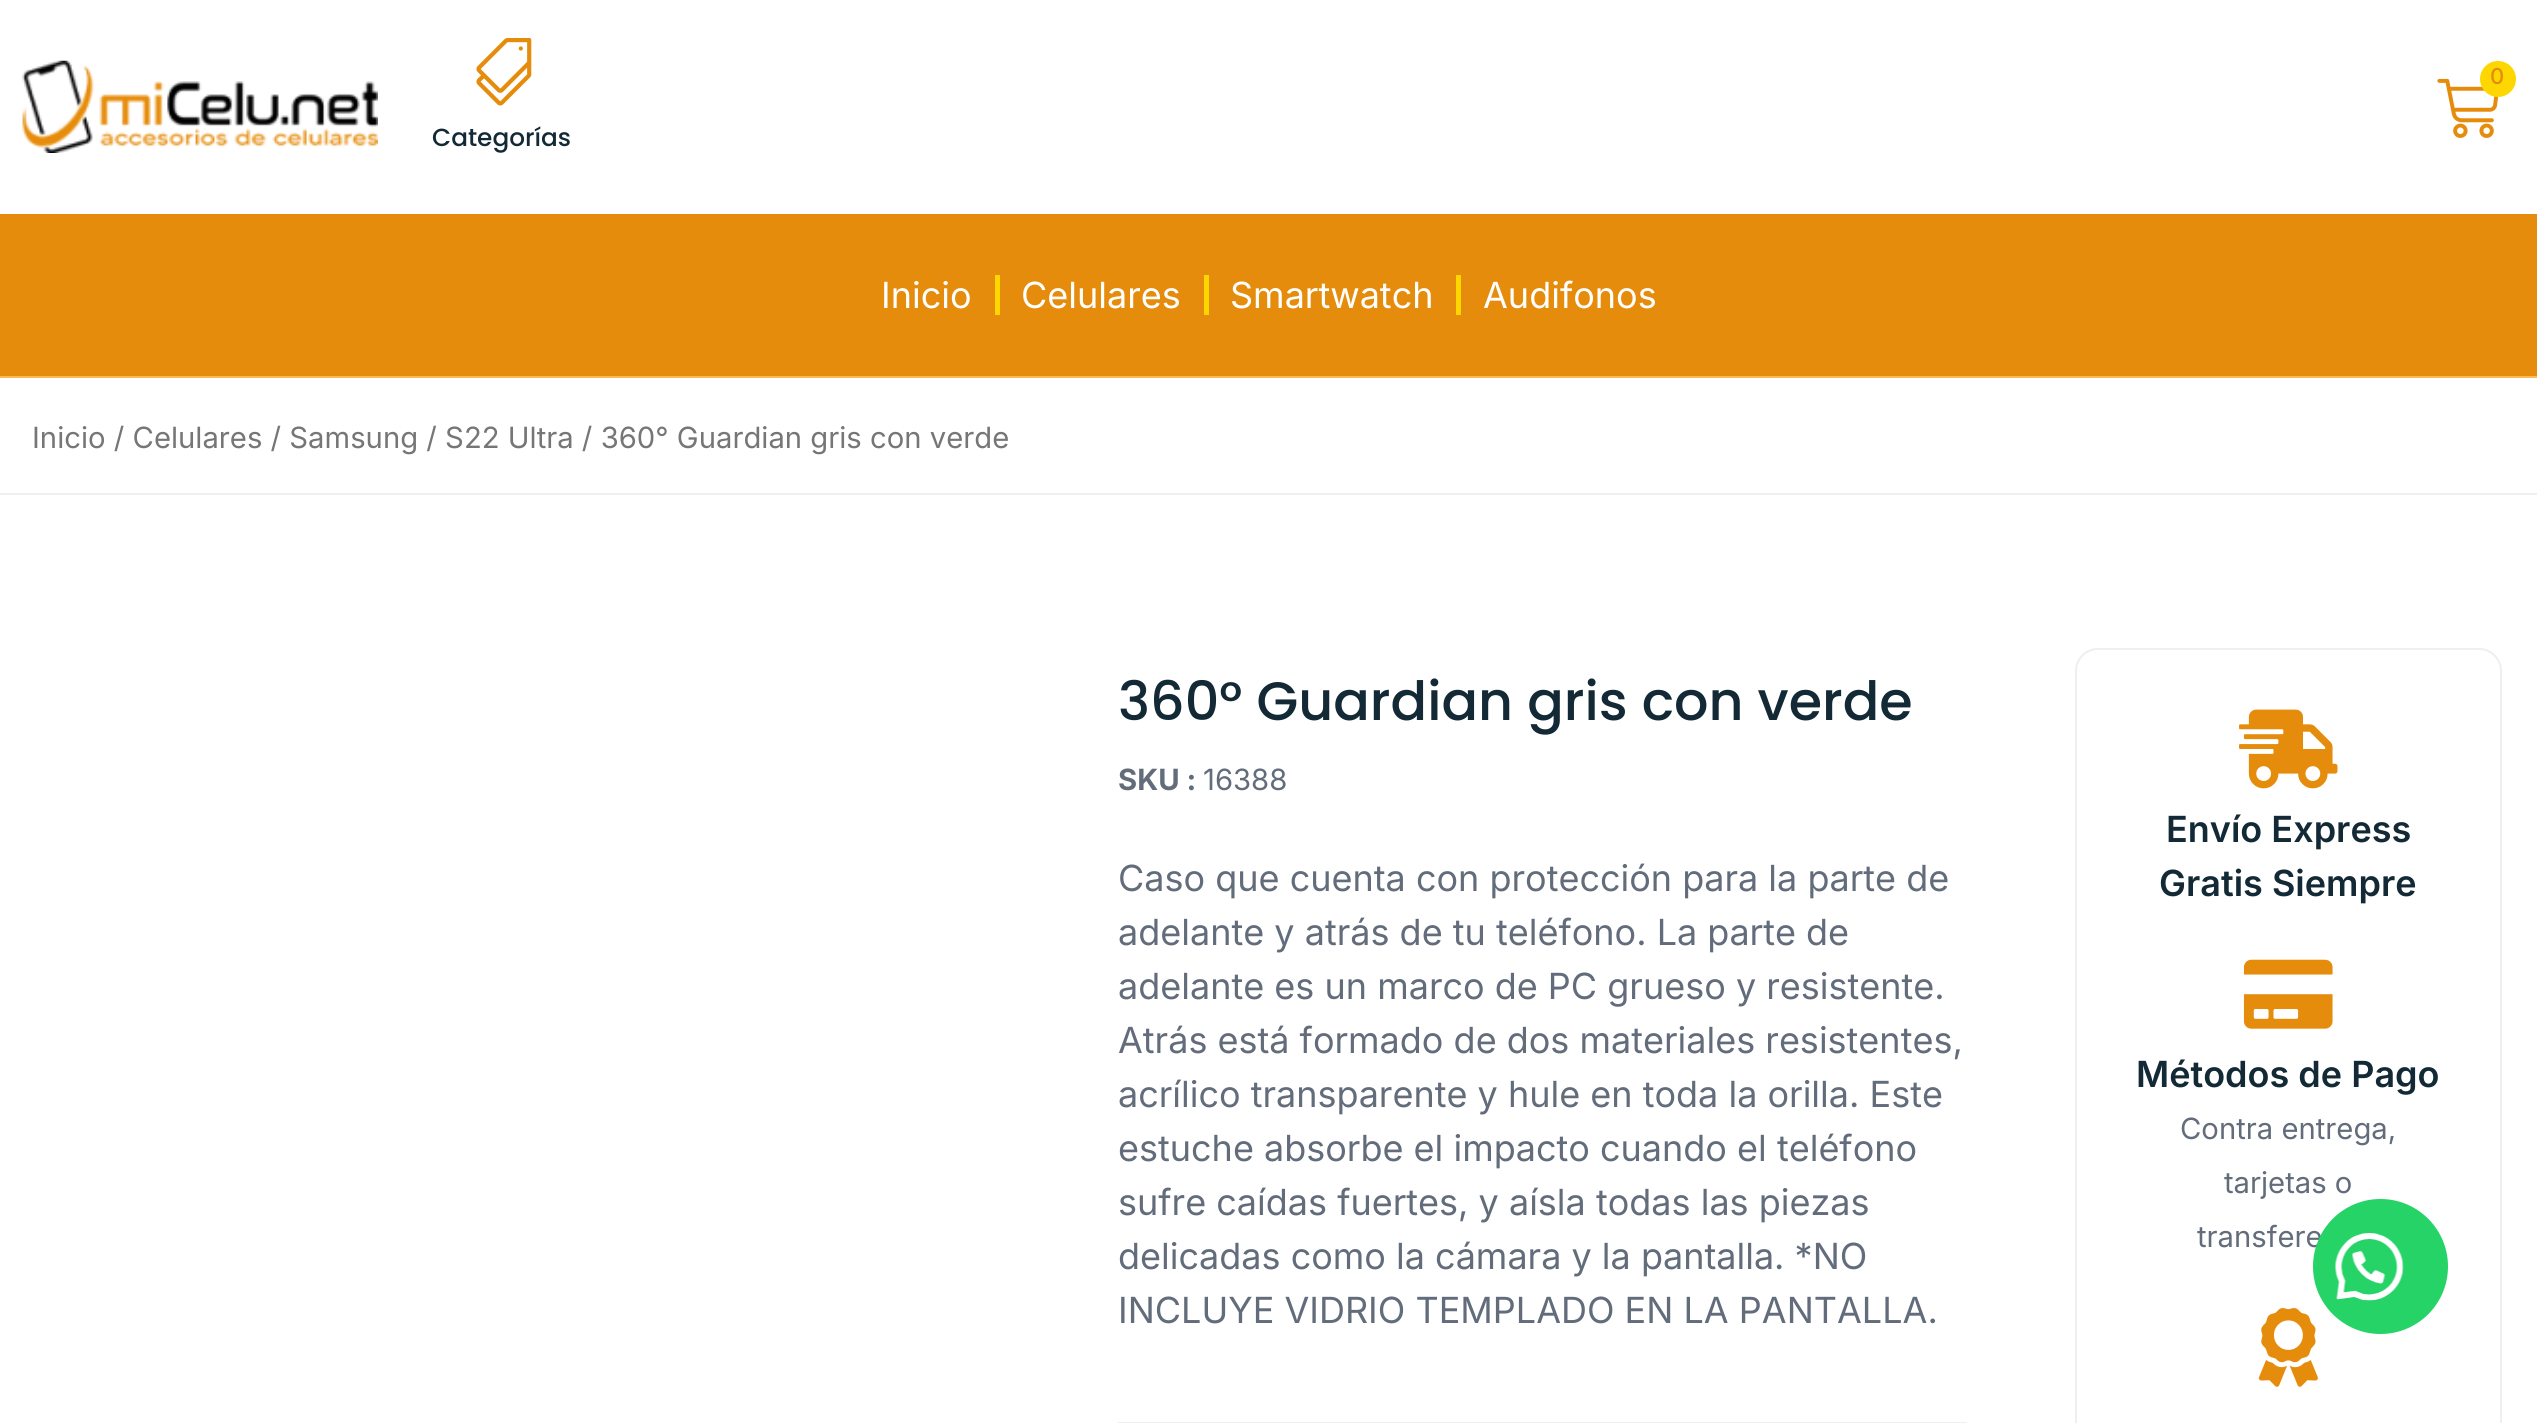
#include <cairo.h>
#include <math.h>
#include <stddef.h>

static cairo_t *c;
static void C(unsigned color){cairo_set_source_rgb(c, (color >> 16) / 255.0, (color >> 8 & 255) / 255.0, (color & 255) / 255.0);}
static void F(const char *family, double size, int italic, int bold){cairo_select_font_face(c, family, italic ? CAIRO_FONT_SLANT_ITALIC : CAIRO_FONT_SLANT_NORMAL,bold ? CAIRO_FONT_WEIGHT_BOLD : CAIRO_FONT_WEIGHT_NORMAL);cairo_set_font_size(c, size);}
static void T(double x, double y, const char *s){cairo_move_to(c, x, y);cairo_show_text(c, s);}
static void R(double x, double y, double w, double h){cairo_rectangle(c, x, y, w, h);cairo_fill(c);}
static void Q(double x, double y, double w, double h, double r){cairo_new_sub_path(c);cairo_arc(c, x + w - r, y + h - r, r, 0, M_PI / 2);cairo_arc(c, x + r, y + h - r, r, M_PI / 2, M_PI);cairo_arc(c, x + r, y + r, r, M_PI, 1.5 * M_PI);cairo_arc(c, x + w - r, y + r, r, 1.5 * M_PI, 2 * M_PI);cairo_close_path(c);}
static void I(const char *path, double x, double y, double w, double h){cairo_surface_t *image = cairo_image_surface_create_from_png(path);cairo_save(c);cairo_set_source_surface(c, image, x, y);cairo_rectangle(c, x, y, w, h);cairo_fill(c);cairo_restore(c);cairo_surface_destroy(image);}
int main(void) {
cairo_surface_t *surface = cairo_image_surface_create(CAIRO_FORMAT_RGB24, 2537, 1423);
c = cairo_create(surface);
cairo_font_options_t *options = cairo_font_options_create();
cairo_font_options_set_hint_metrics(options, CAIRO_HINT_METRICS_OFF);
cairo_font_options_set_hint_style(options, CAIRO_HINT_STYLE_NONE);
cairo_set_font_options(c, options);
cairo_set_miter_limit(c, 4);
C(0xffffff);
cairo_paint(c);
I("1.png",2437,78,62,60);
C(0xfed700);
cairo_arc(c,2498,79,18,0,2 * M_PI);
cairo_fill(c);
F("Inter Medium",22,0,0);
C(0xe68c0c);
T(2490,84,"0");
I("2.png",22,60,356,93);
I("3.png",476,38,56,68);
F("Poppins Medium",24.75,0,0);
C(0x132a36);
T(432,146,"Categorías");
C(0xe68c0c);
R(0,214,2537,162);
C(0xffba57);
R(0,376,2537,2);
F("Inter",36,0,0);
C(0xffffff);
T(881,308,"Inicio");
C(0xfed700);
R(995,275,5,40);
C(0xffffff);
T(1021,308,"Celulares");
C(0xfed700);
R(1204,275,5,40);
C(0xffffff);
T(1230,308,"Smartwatch");
C(0xfed700);
R(1456,275,5,40);
C(0xffffff);
T(1483,308,"Audifonos");
C(0xecf0f0);
R(0,493,2537,2);
F("Inter",29.25,0,0);
C(0x767676);
T(32,448,"Inicio / Celulares / Samsung / S22 Ultra / 360° Guardian gris con verde");
F("Poppins Medium",54,0,0);
C(0x132a36);
T(1118,720,"360° Guardian gris con verde");
F("Inter",29.25,0,1);
C(0x626c7b);
T(1118,790,"SKU :");
F("Inter",29.25,0,0);
T(1203,790,"16388");
F("Inter",36,0,0);
T(1118,891,"Caso que cuenta con protección para la parte de");
T(1118,945,"adelante y atrás de tu teléfono. La parte de");
T(1118,999,"adelante es un marco de PC grueso y resistente.");
T(1118,1053,"Atrás está formado de dos materiales resistentes,");
T(1118,1107,"acrílico transparente y hule en toda la orilla. Este");
T(1118,1161,"estuche absorbe el impacto cuando el teléfono");
T(1118,1215,"sufre caídas fuertes, y aísla todas las piezas");
T(1118,1269,"delicadas como la cámara y la pantalla. *NO");
T(1118,1323,"INCLUYE VIDRIO TEMPLADO EN LA PANTALLA.");
C(0xecf0f0);
R(1118,1422,849,1);
Q(2076,649,425,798,22);
cairo_stroke(c);
I("4.png",2239,709,99,80);
F("Inter SemiBold",36,0,0);
C(0x132a36);
T(2166,842,"Envío Express");
T(2159,896,"Gratis Siempre");
I("5.png",2243,959,90,70);
T(2136,1087,"Métodos de Pago");
F("Inter",29.25,0,0);
C(0x626c7b);
T(2180,1139,"Contra entrega,");
T(2224,1193,"tarjetas o");
T(2197,1247,"transfere");
I("6.png",2258,1308,60,79);
C(0x25d366);
cairo_arc(c,2380.5,1266.5,67.5,0,2 * M_PI);
cairo_fill(c);
I("7.png",2335,1233,69,68);
cairo_surface_write_to_png(surface, "o.png");
cairo_font_options_destroy(options);
cairo_destroy(c);
cairo_surface_destroy(surface);
return 0;
}
